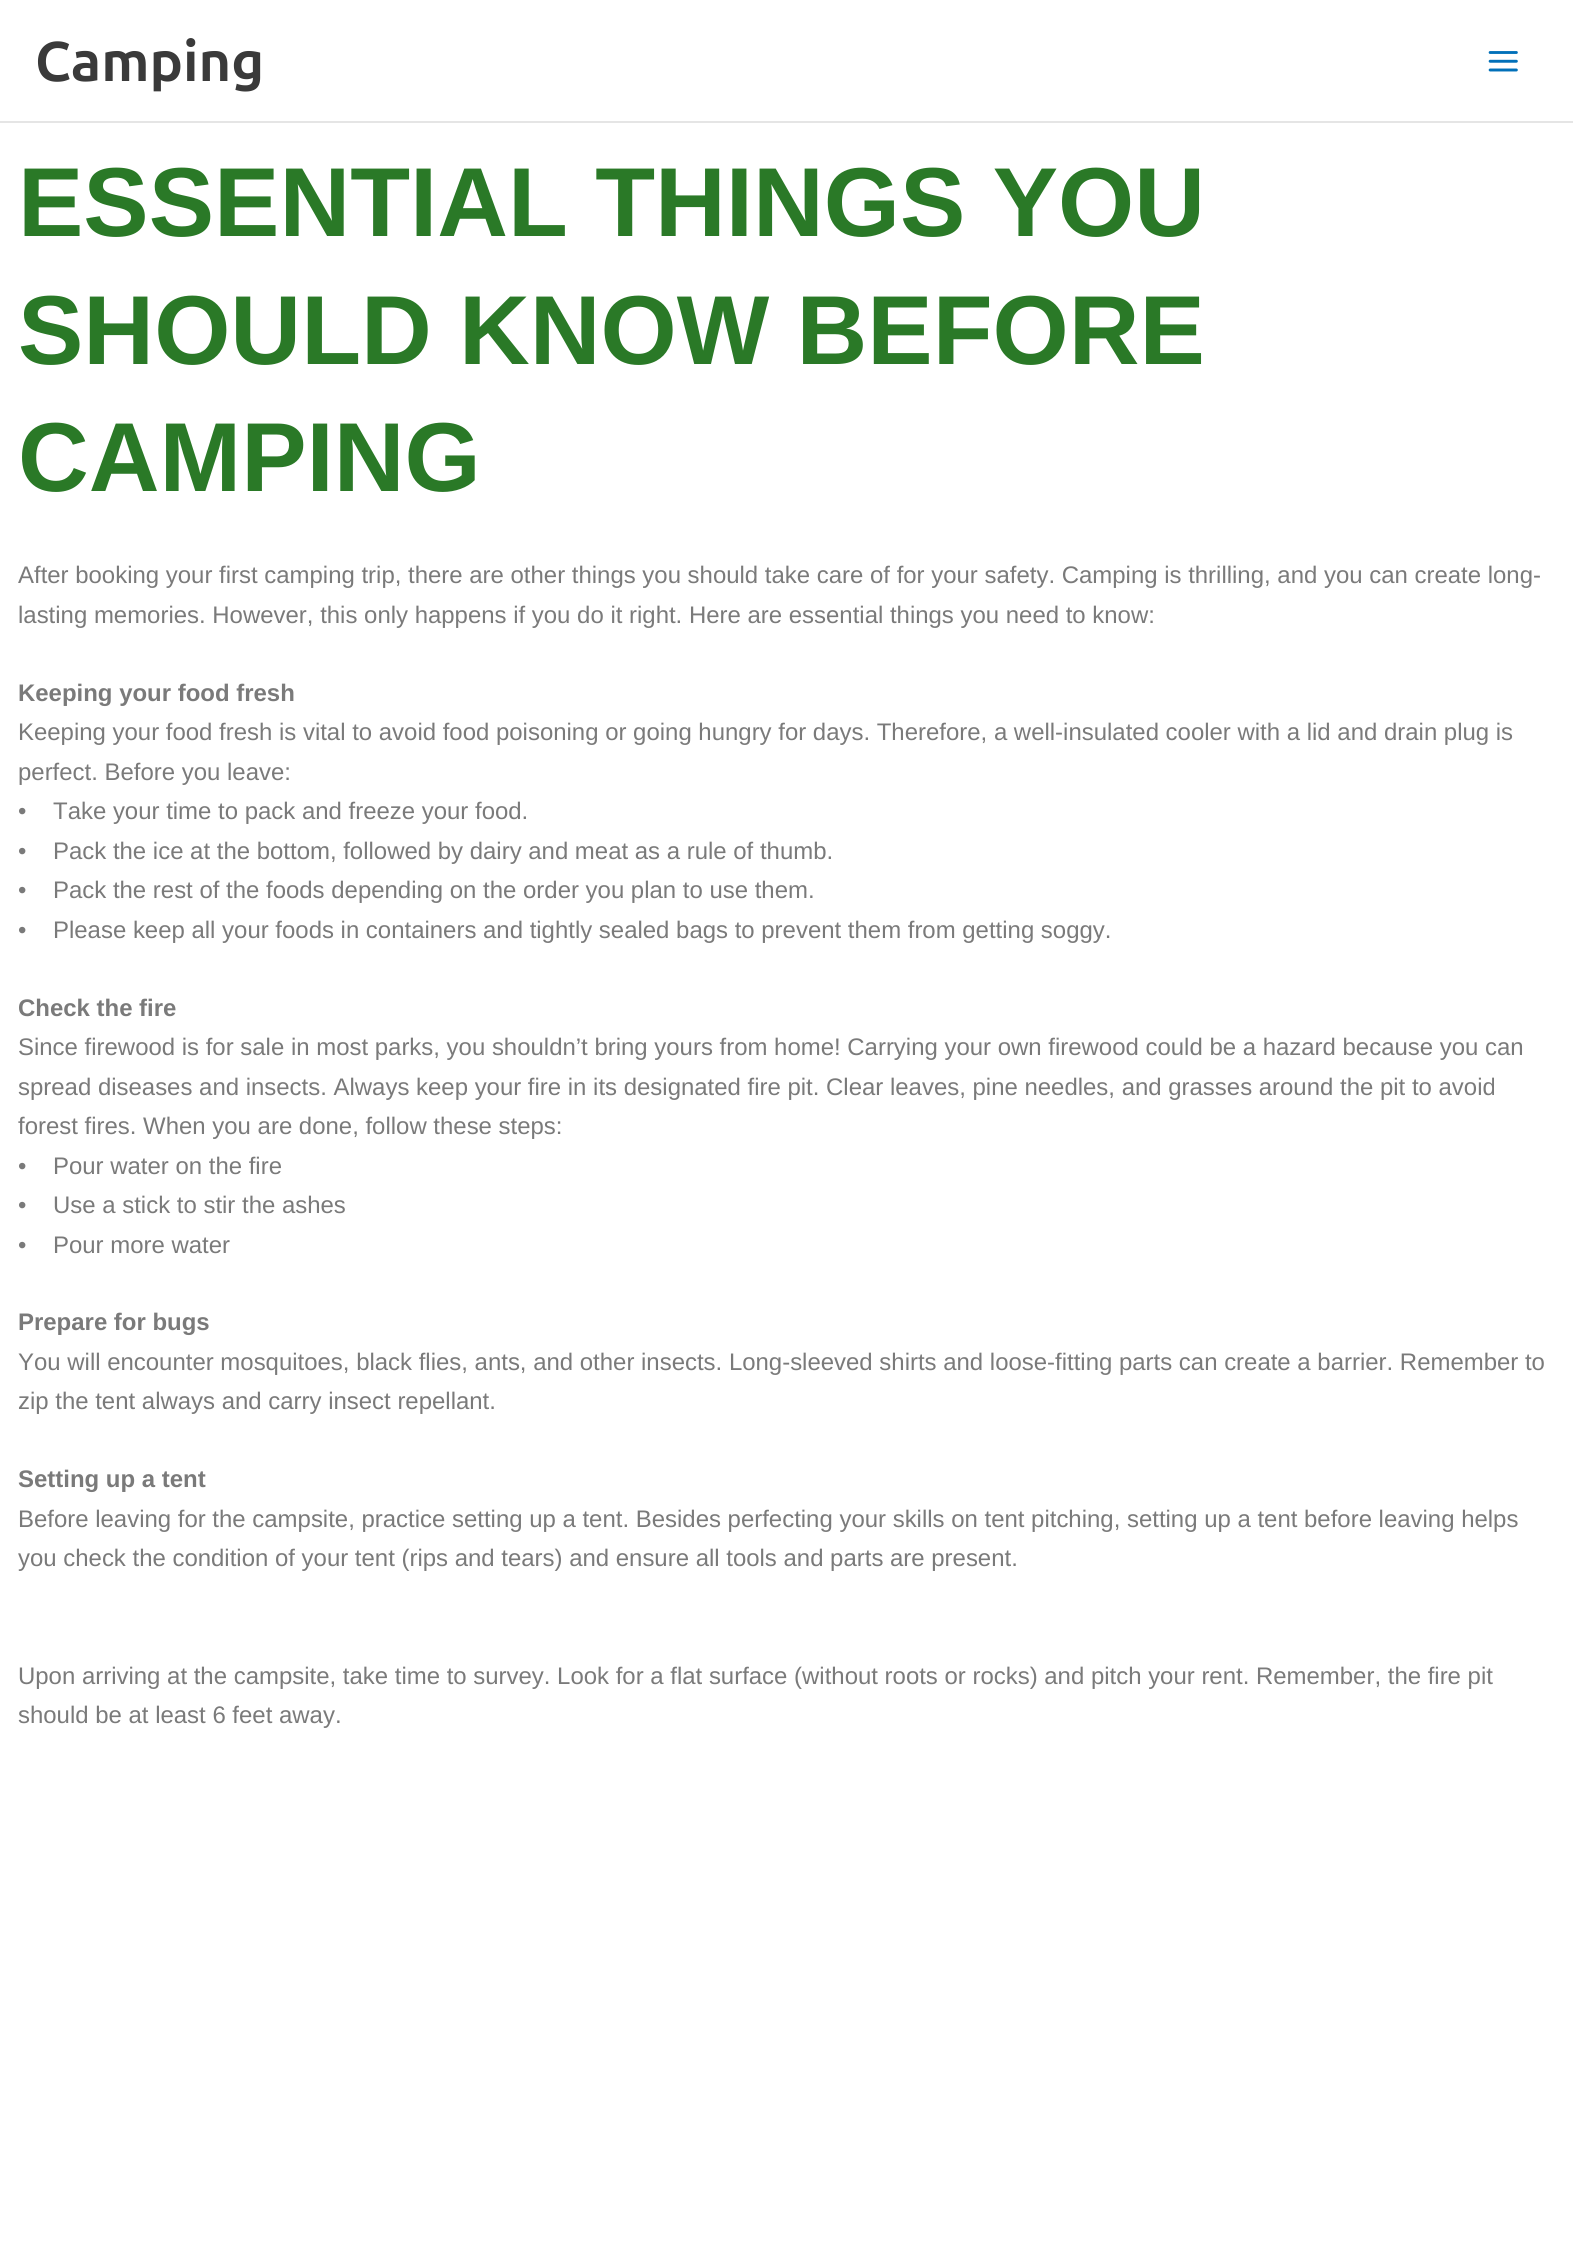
#include <cairo.h>
#include <math.h>
#include <stddef.h>

static cairo_t *c;
static void C(unsigned color){cairo_set_source_rgb(c, (color >> 16) / 255.0, (color >> 8 & 255) / 255.0, (color & 255) / 255.0);}
static void F(const char *family, double size, int italic, int bold){cairo_select_font_face(c, family, italic ? CAIRO_FONT_SLANT_ITALIC : CAIRO_FONT_SLANT_NORMAL,bold ? CAIRO_FONT_WEIGHT_BOLD : CAIRO_FONT_WEIGHT_NORMAL);cairo_set_font_size(c, size);}
static void T(double x, double y, const char *s){cairo_move_to(c, x, y);cairo_show_text(c, s);}
static void R(double x, double y, double w, double h){cairo_rectangle(c, x, y, w, h);cairo_fill(c);}
static void I(const char *path, double x, double y, double w, double h){cairo_surface_t *image = cairo_image_surface_create_from_png(path);cairo_save(c);cairo_set_source_surface(c, image, x, y);cairo_rectangle(c, x, y, w, h);cairo_fill(c);cairo_restore(c);cairo_surface_destroy(image);}
int main(void) {
cairo_surface_t *surface = cairo_image_surface_create(CAIRO_FORMAT_RGB24, 1573, 2268);
c = cairo_create(surface);
cairo_font_options_t *options = cairo_font_options_create();
cairo_font_options_set_hint_metrics(options, CAIRO_HINT_METRICS_OFF);
cairo_font_options_set_hint_style(options, CAIRO_HINT_STYLE_NONE);
cairo_set_font_options(c, options);
cairo_set_miter_limit(c, 4);
C(0xffffff);
cairo_paint(c);
C(0xe5e5e5);
R(0,121,1573,2);
F("Ubuntu",56,0,1);
C(0x3a3a3a);
T(35,81,"Camping");
I("1.png",1488,51,30,21);
F("Liberation Sans",98,0,1);
C(0x2a7927);
T(18,236,"ESSENTIAL THINGS YOU");
T(18,364,"SHOULD KNOW BEFORE");
T(18,491,"CAMPING");
F("Liberation Sans",23.95,0,0);
C(0x7a7a7a);
T(18,583,"After booking your first camping trip, there are other things you should take care of for your safety. Camping is thrilling, and you can create long-");
T(18,623,"lasting memories. However, this only happens if you do it right. Here are essential things you need to know:");
F("Liberation Sans",23.95,0,1);
T(18,701,"Keeping your food fresh");
F("Liberation Sans",23.95,0,0);
T(18,740,"Keeping your food fresh is vital to avoid food poisoning or going hungry for days. Therefore, a well-insulated cooler with a lid and drain plug is");
T(18,780,"perfect. Before you leave:");
T(18,819,"•    Take your time to pack and freeze your food.");
T(18,859,"•    Pack the ice at the bottom, followed by dairy and meat as a rule of thumb.");
T(18,898,"•    Pack the rest of the foods depending on the order you plan to use them.");
T(18,938,"•    Please keep all your foods in containers and tightly sealed bags to prevent them from getting soggy.");
F("Liberation Sans",23.95,0,1);
T(18,1016,"Check the fire");
F("Liberation Sans",23.95,0,0);
T(18,1055,"Since firewood is for sale in most parks, you shouldn’t bring yours from home! Carrying your own firewood could be a hazard because you can");
T(18,1095,"spread diseases and insects. Always keep your fire in its designated fire pit. Clear leaves, pine needles, and grasses around the pit to avoid");
T(18,1134,"forest fires. When you are done, follow these steps:");
T(18,1174,"•    Pour water on the fire");
T(18,1213,"•    Use a stick to stir the ashes");
T(18,1253,"•    Pour more water");
F("Liberation Sans",23.95,0,1);
T(18,1330,"Prepare for bugs");
F("Liberation Sans",23.95,0,0);
T(18,1370,"You will encounter mosquitoes, black flies, ants, and other insects. Long-sleeved shirts and loose-fitting parts can create a barrier. Remember to");
T(18,1409,"zip the tent always and carry insect repellant.");
F("Liberation Sans",23.95,0,1);
T(18,1487,"Setting up a tent");
F("Liberation Sans",23.95,0,0);
T(18,1527,"Before leaving for the campsite, practice setting up a tent. Besides perfecting your skills on tent pitching, setting up a tent before leaving helps");
T(18,1566,"you check the condition of your tent (rips and tears) and ensure all tools and parts are present.");
T(18,1684,"Upon arriving at the campsite, take time to survey. Look for a flat surface (without roots or rocks) and pitch your rent. Remember, the fire pit");
T(18,1723,"should be at least 6 feet away.");
cairo_surface_write_to_png(surface, "o.png");
cairo_font_options_destroy(options);
cairo_destroy(c);
cairo_surface_destroy(surface);
return 0;
}
